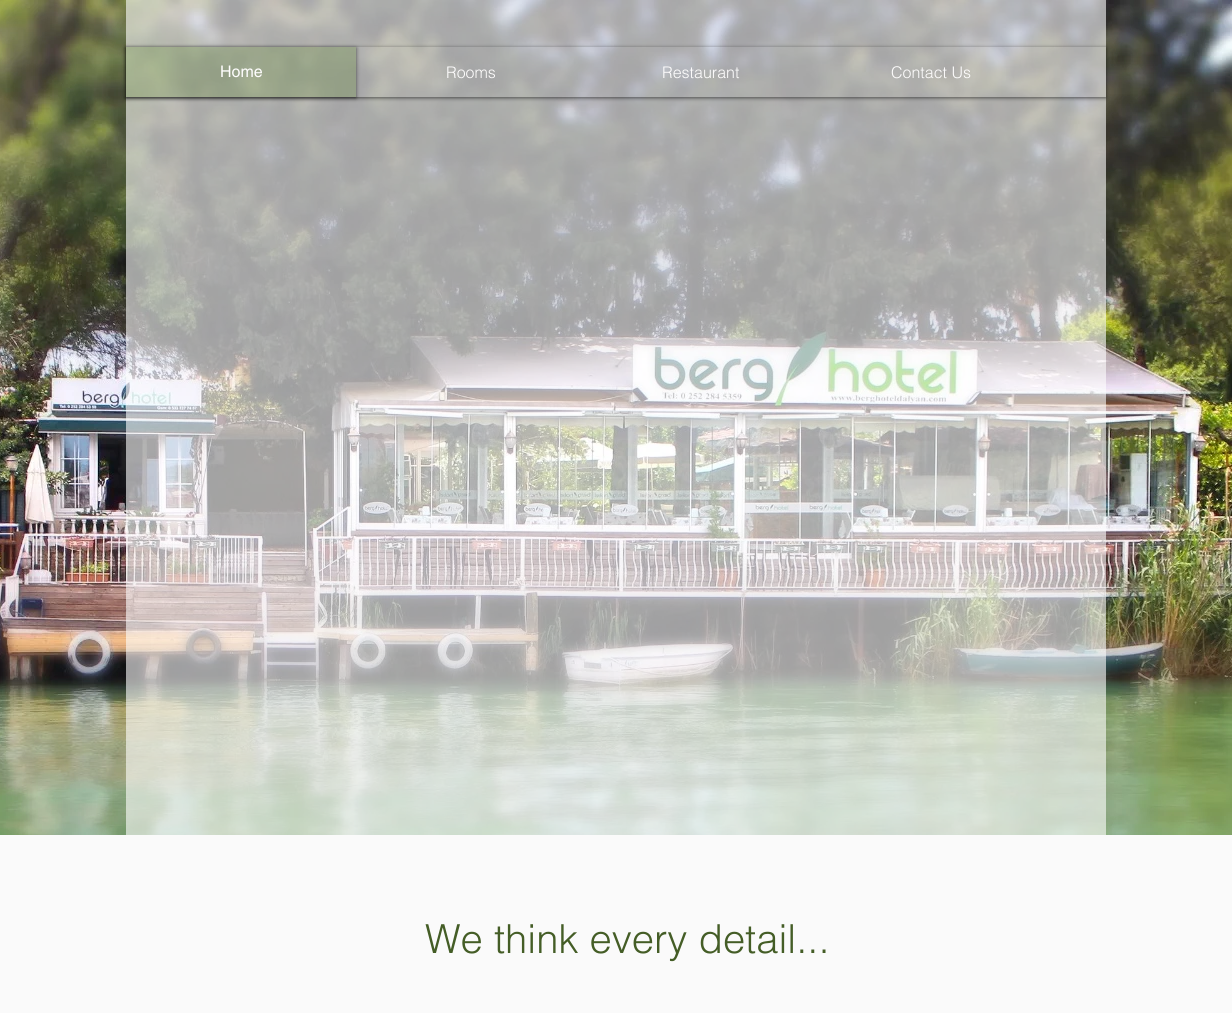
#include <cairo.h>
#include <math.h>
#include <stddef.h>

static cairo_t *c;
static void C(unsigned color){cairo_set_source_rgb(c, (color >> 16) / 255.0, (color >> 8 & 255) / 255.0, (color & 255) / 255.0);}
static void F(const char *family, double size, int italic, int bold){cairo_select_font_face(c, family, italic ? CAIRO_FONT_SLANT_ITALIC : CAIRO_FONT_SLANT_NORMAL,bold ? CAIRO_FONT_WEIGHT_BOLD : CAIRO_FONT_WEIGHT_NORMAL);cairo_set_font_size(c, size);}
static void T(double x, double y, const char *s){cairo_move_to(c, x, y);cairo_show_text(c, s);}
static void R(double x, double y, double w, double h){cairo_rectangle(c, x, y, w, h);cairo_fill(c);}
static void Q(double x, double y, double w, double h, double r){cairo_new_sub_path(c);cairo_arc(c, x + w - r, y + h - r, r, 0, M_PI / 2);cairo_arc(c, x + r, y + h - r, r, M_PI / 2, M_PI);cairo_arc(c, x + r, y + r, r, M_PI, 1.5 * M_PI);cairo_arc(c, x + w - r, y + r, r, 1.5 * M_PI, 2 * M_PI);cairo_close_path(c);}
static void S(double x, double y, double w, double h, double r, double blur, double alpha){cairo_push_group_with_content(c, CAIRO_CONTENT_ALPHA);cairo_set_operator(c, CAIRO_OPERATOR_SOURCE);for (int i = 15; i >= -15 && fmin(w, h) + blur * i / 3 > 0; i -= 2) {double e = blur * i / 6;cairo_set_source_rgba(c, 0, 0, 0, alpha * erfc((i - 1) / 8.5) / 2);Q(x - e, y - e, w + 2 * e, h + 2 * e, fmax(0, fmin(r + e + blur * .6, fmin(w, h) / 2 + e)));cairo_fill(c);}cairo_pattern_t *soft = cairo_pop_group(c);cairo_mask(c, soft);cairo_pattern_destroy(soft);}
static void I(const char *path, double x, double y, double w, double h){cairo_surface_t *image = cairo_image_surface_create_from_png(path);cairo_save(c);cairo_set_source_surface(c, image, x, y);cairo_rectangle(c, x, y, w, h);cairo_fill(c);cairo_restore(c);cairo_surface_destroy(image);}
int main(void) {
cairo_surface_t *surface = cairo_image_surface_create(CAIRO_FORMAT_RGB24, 1232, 1013);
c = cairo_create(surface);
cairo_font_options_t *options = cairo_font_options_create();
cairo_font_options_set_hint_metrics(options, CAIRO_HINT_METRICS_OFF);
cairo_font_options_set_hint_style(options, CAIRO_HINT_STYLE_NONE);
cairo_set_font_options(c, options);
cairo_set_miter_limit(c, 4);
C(0xffffff);
cairo_paint(c);
I("1.png",0,0,1232,835);
cairo_set_source_rgba(c,1,1,1,0.6);
R(126,0,980,835);
cairo_save(c);
cairo_set_fill_rule(c,CAIRO_FILL_RULE_EVEN_ODD);
cairo_new_path(c);
cairo_move_to(c,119,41);
cairo_line_to(c,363,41);
cairo_line_to(c,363,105);
cairo_line_to(c,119,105);
cairo_close_path(c);
cairo_move_to(c,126,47);
cairo_line_to(c,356,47);
cairo_line_to(c,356,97);
cairo_line_to(c,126,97);
cairo_close_path(c);
cairo_clip(c);
C(0x000000);
S(126,48,230,50,0,2,.6);
cairo_restore(c);
cairo_save(c);
cairo_set_fill_rule(c,CAIRO_FILL_RULE_EVEN_ODD);
cairo_new_path(c);
cairo_move_to(c,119,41);
cairo_line_to(c,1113,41);
cairo_line_to(c,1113,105);
cairo_line_to(c,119,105);
cairo_close_path(c);
cairo_move_to(c,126,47);
cairo_line_to(c,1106,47);
cairo_line_to(c,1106,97);
cairo_line_to(c,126,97);
cairo_close_path(c);
cairo_clip(c);
C(0x000000);
S(126,48,980,50,0,2,.6);
cairo_restore(c);
cairo_set_source_rgba(c,0.404,0.549,0.224,0.3);
R(126,47,230,50);
F("helvetica",16,0,0);
C(0xfefdfd);
T(220,77,"Home");
F("helvetica Light",16,0,0);
T(446,78,"Rooms");
T(662,78,"Restaurant");
T(891,78,"Contact Us");
C(0xfafafa);
R(0,835,1232,178);
F("helvetica Light",40,0,0);
C(0x445d26);
T(425,953,"We think every detail...");
cairo_surface_write_to_png(surface, "o.png");
cairo_font_options_destroy(options);
cairo_destroy(c);
cairo_surface_destroy(surface);
return 0;
}
